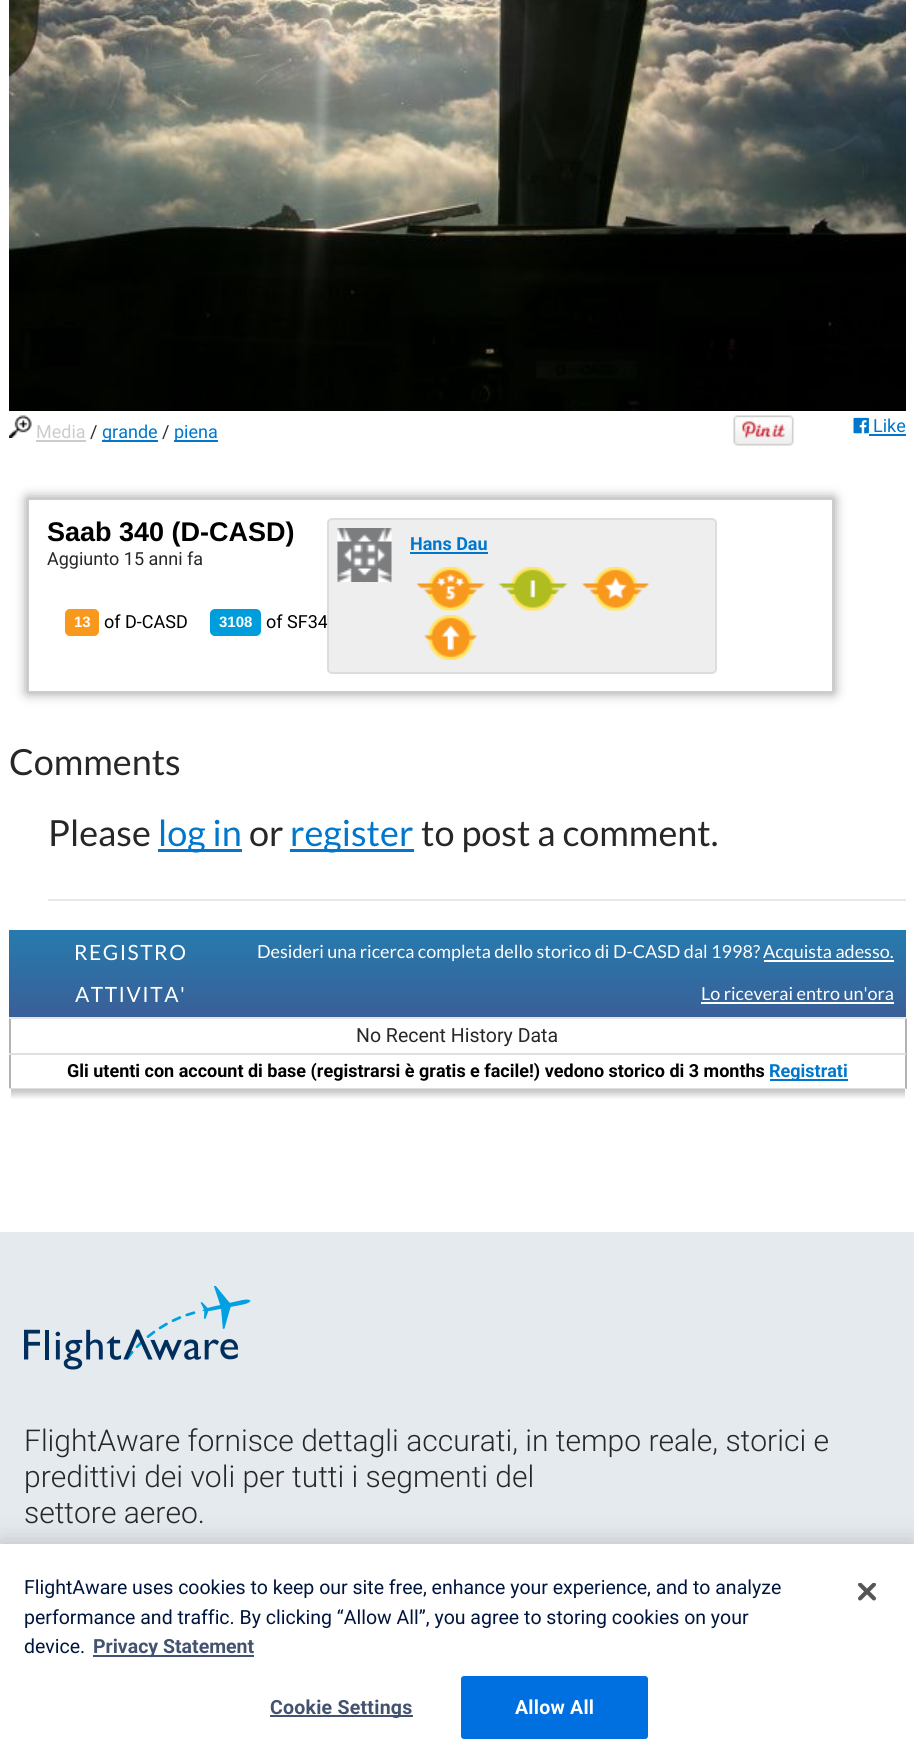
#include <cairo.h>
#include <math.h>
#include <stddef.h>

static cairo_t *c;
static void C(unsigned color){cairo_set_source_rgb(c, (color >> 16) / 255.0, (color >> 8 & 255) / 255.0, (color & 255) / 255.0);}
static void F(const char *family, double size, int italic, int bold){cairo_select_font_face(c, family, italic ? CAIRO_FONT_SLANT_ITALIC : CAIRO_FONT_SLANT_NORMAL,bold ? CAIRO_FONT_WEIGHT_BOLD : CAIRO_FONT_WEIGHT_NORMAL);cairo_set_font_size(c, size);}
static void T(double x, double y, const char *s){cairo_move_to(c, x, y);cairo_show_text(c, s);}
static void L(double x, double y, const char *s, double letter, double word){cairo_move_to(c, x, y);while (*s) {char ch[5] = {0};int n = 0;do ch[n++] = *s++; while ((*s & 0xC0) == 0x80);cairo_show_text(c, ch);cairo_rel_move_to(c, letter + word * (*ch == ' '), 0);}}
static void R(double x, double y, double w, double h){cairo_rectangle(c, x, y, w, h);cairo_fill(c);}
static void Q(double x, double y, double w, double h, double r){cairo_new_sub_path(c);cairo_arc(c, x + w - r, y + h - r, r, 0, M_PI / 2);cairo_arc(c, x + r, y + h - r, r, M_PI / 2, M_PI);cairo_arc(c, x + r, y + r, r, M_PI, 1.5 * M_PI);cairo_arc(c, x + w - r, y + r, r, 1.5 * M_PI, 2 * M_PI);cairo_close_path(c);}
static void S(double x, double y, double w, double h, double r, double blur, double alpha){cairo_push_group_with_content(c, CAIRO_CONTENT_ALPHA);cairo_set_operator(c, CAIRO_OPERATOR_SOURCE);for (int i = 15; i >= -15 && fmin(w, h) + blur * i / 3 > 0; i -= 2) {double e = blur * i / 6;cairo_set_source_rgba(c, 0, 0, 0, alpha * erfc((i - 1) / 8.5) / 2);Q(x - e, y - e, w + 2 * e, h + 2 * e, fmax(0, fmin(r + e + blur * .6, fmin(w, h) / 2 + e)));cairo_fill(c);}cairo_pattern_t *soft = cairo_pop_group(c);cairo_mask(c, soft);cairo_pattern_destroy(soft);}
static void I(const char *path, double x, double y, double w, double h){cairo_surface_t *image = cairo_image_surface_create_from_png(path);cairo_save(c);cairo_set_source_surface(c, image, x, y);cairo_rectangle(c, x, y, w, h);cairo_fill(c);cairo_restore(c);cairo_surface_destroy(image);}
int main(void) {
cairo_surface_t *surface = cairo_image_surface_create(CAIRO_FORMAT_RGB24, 914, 1762);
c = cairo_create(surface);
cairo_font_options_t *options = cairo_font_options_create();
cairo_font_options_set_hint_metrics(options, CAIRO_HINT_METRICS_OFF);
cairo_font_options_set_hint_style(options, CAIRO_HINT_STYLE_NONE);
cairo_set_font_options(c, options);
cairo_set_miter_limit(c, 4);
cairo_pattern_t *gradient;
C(0xffffff);
cairo_paint(c);
I("1.png",9,0,897,411);
I("2.png",9,415,23,23);
F("Roboto",18,0,0);
C(0xcccccc);
T(36,438,"Media");
R(36,440,50,2);
C(0x272727);
T(90,438,"/");
C(0x0077cc);
R(102,440,56,2);
T(102,438,"grande");
C(0x272727);
T(162,438,"/");
C(0x0077cc);
R(174,440,44,2);
T(174,438,"piena");
I("3.png",733,415,61,31);
I("4.png",853,417,16,17);
T(873,432,"Like");
R(869,434,37,2);
cairo_save(c);
cairo_set_fill_rule(c,CAIRO_FILL_RULE_EVEN_ODD);
cairo_new_path(c);
cairo_move_to(c,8,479);
cairo_line_to(c,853,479);
cairo_line_to(c,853,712);
cairo_line_to(c,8,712);
cairo_close_path(c);
cairo_move_to(c,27,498);
cairo_line_to(c,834,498);
cairo_line_to(c,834,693);
cairo_line_to(c,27,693);
cairo_close_path(c);
cairo_clip(c);
C(0x999999);
S(27,498,807,195,0,6,1);
cairo_restore(c);
cairo_rectangle(c,28,499,805,193);
C(0xcccccc);
cairo_stroke(c);
F("Liberation Sans",27,0,1);
C(0x000000);
T(47,541,"Saab 340 (D-CASD)");
F("Roboto",18,0,0);
C(0x272727);
T(47,565,"Aggiunto 15 anni fa");
C(0xf8981d);
Q(65,609,34,27,5);
cairo_fill(c);
F("Liberation Sans",15,0,1);
C(0xffffff);
T(74,627,"13");
F("Roboto",18,0,0);
C(0x000000);
T(104,628,"of D-CASD");
C(0x009ddc);
Q(210,609,51,27,5);
cairo_fill(c);
F("Liberation Sans",15,0,1);
C(0xffffff);
T(219,627,"3108");
F("Roboto",18,0,0);
C(0x000000);
T(266,628,"of SF34");
C(0xeeeeee);
Q(328,519,388,154,4);
cairo_fill_preserve(c);
C(0xdddddd);
cairo_stroke(c);
I("5.png",337,528,55,54);
F("Roboto",18,0,1);
C(0x0077cc);
T(410,550,"Hans Dau");
R(410,552,78,2);
I("6.png",416,567,69,44);
I("7.png",498,567,70,44);
I("8.png",581,567,69,44);
I("9.png",424,615,53,45);
F("Lato",36,0,0);
C(0x272727);
T(9,775,"Comments");
C(0xe8e8e8);
R(48,899,858,2);
C(0x272727);
T(48,846,"Please");
C(0x0077cc);
R(158,849,84,3);
T(158,846,"log in");
C(0x272727);
T(249,846,"or");
C(0x0077cc);
R(290,849,124,3);
T(290,846,"register");
C(0x272727);
T(421,846,"to post a comment.");
gradient = cairo_pattern_create_linear(9,930,9,1017);
cairo_pattern_add_color_stop_rgba(gradient,0,0.149,0.482,0.682,1);
cairo_pattern_add_color_stop_rgba(gradient,1,0.227,0.373,0.592,1);
cairo_set_source(c,gradient);
cairo_pattern_destroy(gradient);
R(9,930,897,87);
F("Lato",21,0,0);
C(0xffffff);
L(74,960,"REGISTRO",1.5,0);
L(75,1002,"ATTIVITA'",1.5,0);
F("Lato",18,0,0);
T(257,958,"Desideri una ricerca completa dello storico di D-CASD dal 1998?");
R(764,960,130,2);
T(763,958,"Acquista adesso.");
T(701,1000,"Lo riceverai entro un'ora");
R(701,1002,193,2);
C(0xb2b2b2);
R(905,1017,2,72);
R(9,1017,2,72);
C(0xe5e5e4);
R(9,1017,898,2);
C(0xdfdfdf);
R(9,1053,897,2);
F("Roboto",19.5,0,0);
C(0x272727);
T(356,1042,"No Recent History Data");
C(0xdfdfdf);
R(9,1088,897,1);
F("Roboto",18,0,1);
C(0x000000);
T(67,1077,"Gli utenti con account di base (registrarsi è gratis e facile!) vedono storico di 3 months");
C(0x0077cc);
R(770,1079,78,2);
T(769,1077,"Registrati");
I("10.png",11,1089,894,10);
C(0xe5eaef);
R(0,1232,914,312);
I("11.png",24,1286,227,84);
F("Roboto Light",30,0,0);
C(0x272727);
T(24,1451,"FlightAware fornisce dettagli accurati, in tempo reale, storici e");
T(24,1487,"predittivi dei voli per tutti i segmenti del");
T(24,1523,"settore aereo.");
C(0x000000);
S(0,1544,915,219,0,13.5,.2);
C(0xffffff);
R(0,1544,914,218);
F("Roboto",19.5,0,0);
C(0x00153d);
T(24,1594,"FlightAware uses cookies to keep our site free, enhance your experience, and to analyze");
T(24,1624,"performance and traffic. By clicking “Allow All”, you agree to storing cookies on your");
T(24,1653,"device.");
C(0x42526f);
R(93,1655,161,2);
F("Roboto",19.5,0,1);
T(93,1653,"Privacy Statement");
R(270,1715,143,2);
L(270,1714,"Cookie Settings",.25,0);
C(0x0070e0);
Q(462,1677,185,61,2);
cairo_fill_preserve(c);
cairo_stroke(c);
C(0xffffff);
L(515,1714,"Allow All",.25,0);
I("12.png",858,1583,18,18);
cairo_surface_write_to_png(surface, "o.png");
cairo_font_options_destroy(options);
cairo_destroy(c);
cairo_surface_destroy(surface);
return 0;
}
